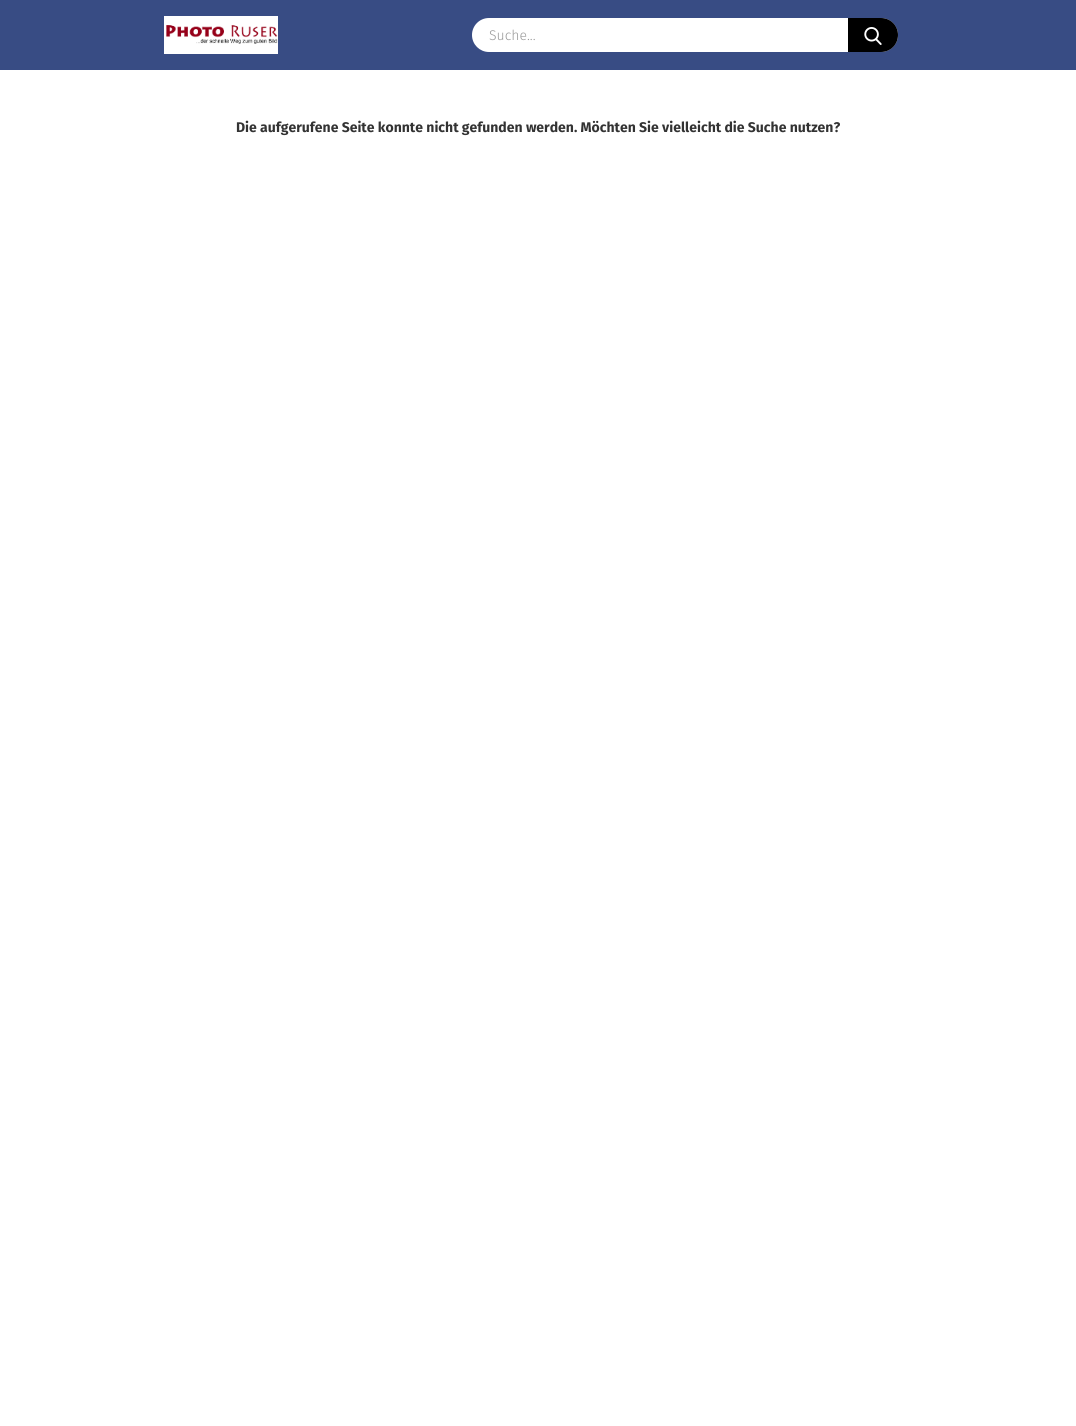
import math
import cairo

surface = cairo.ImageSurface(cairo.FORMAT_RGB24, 1076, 1426)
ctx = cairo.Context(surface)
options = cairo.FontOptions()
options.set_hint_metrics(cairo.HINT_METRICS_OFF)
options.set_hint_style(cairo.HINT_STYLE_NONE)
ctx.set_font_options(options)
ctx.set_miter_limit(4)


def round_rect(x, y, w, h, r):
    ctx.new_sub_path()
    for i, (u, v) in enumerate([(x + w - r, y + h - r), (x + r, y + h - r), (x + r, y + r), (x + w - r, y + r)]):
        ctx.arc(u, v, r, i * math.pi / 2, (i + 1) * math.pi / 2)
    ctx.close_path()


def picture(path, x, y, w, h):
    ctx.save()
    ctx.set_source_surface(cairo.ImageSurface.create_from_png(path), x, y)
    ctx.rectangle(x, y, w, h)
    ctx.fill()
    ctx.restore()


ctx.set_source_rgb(1, 1, 1)
ctx.paint()
ctx.set_source_rgb(0.22, 0.298, 0.518)
ctx.rectangle(0, 0, 1076, 70)
ctx.fill()
picture("img1.png", 164, 16, 114, 38)
ctx.set_source_rgb(1, 1, 1)
round_rect(473, 19, 424, 32, 16)
ctx.fill_preserve()
ctx.stroke()
ctx.select_font_face("Fira Sans Light")
ctx.set_font_size(14)
ctx.set_source_rgb(0.6, 0.6, 0.6)
ctx.move_to(489, 40)
ctx.show_text("Suche...")
ctx.set_source_rgb(0, 0, 0)
ctx.new_path()
ctx.move_to(848, 18)
ctx.line_to(881, 18)
ctx.curve_to(890.5, 18, 898, 25.5, 898, 35)
ctx.curve_to(898, 44.5, 890.5, 52, 881, 52)
ctx.line_to(848, 52)
ctx.close_path()
ctx.fill()
picture("img2.png", 864, 27, 18, 18)
ctx.select_font_face("Fira Sans", cairo.FONT_SLANT_NORMAL, cairo.FONT_WEIGHT_BOLD)
ctx.set_source_rgb(0.2, 0.2, 0.2)
ctx.move_to(236, 132)
ctx.show_text("Die aufgerufene Seite konnte nicht gefunden werden. Möchten Sie vielleicht die Suche nutzen?")
surface.write_to_png("page.png")
